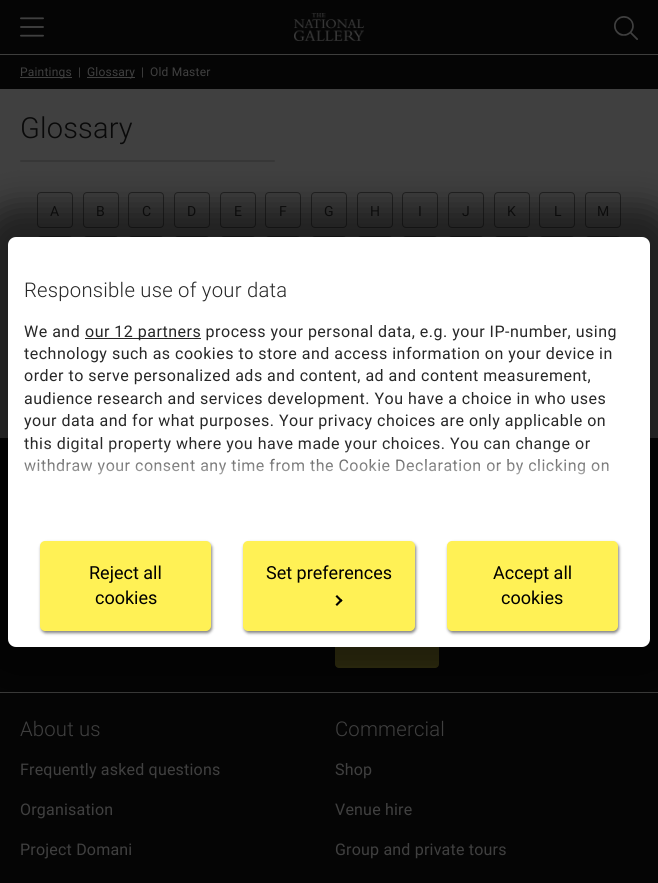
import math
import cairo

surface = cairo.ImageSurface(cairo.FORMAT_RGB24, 658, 883)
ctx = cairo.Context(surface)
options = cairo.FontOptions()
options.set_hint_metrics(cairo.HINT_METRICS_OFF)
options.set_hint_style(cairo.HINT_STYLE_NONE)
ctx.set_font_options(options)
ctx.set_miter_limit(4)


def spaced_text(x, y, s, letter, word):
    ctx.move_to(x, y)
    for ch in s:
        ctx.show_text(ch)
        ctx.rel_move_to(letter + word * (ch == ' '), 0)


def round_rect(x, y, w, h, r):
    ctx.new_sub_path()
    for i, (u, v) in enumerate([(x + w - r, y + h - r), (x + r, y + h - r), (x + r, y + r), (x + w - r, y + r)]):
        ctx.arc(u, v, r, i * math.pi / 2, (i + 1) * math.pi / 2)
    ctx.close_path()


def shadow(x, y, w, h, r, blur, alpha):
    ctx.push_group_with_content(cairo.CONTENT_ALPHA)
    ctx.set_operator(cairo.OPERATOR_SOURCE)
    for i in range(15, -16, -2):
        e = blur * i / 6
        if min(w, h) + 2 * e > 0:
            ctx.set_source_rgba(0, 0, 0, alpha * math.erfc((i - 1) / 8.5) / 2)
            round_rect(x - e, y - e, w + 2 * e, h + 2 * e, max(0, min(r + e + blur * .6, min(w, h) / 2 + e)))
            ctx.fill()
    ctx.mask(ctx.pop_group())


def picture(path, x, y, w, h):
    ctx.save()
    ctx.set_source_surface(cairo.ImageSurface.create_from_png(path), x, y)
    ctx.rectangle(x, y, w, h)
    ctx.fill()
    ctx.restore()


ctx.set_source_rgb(0.251, 0.251, 0.251)
ctx.paint()
ctx.set_source_rgb(0.02, 0.02, 0.02)
ctx.rectangle(0, 0, 658, 54)
ctx.fill()
picture("img1.png", 20, 17, 24, 20)
picture("img2.png", 294, 13, 70, 28)
picture("img3.png", 614, 16, 24, 24)
ctx.rectangle(0, 55, 658, 34)
ctx.fill()
ctx.set_source_rgb(0.243, 0.243, 0.239)
ctx.rectangle(0, 54, 658, 1)
ctx.fill()
ctx.set_source_rgb(0.251, 0.251, 0.251)
ctx.rectangle(20, 77, 52, 1)
ctx.fill()
ctx.select_font_face("Roboto")
ctx.set_font_size(12)
spaced_text(20, 76, "Paintings", 0.2, 0)
spaced_text(78, 76, "|", 0.2, 0)
ctx.rectangle(87, 77, 48, 1)
ctx.fill()
spaced_text(87, 76, "Glossary", 0.2, 0)
spaced_text(141, 76, "|", 0.2, 0)
spaced_text(150, 76, "Old Master", 0.2, 0)
ctx.select_font_face("Roboto Light")
ctx.set_font_size(29)
ctx.set_source_rgb(0.039, 0.039, 0.039)
spaced_text(20, 138, "Glossary", 0.2, 0)
ctx.set_source_rgb(0.216, 0.216, 0.216)
round_rect(20, 160, 255, 2, 1)
ctx.fill()
round_rect(37.5, 192.5, 35, 35, 3.5)
ctx.set_source_rgb(0.141, 0.141, 0.141)
ctx.set_line_width(1)
ctx.stroke()
ctx.select_font_face("Roboto")
ctx.set_font_size(14)
ctx.set_source_rgb(0.071, 0.071, 0.071)
spaced_text(50, 216, "A", 0.2, 0)
round_rect(83.5, 192.5, 35, 35, 3.5)
ctx.set_source_rgb(0.141, 0.141, 0.141)
ctx.stroke()
ctx.set_source_rgb(0.071, 0.071, 0.071)
spaced_text(96, 216, "B", 0.2, 0)
round_rect(128.5, 192.5, 35, 35, 3.5)
ctx.set_source_rgb(0.141, 0.141, 0.141)
ctx.stroke()
ctx.set_source_rgb(0.071, 0.071, 0.071)
spaced_text(142, 216, "C", 0.2, 0)
round_rect(174.5, 192.5, 35, 35, 3.5)
ctx.set_source_rgb(0.141, 0.141, 0.141)
ctx.stroke()
ctx.set_source_rgb(0.071, 0.071, 0.071)
spaced_text(187, 216, "D", 0.2, 0)
round_rect(220.5, 192.5, 35, 35, 3.5)
ctx.set_source_rgb(0.141, 0.141, 0.141)
ctx.stroke()
ctx.set_source_rgb(0.071, 0.071, 0.071)
spaced_text(234, 216, "E", 0.2, 0)
round_rect(265.5, 192.5, 35, 35, 3.5)
ctx.set_source_rgb(0.141, 0.141, 0.141)
ctx.stroke()
ctx.set_source_rgb(0.071, 0.071, 0.071)
spaced_text(279, 216, "F", 0.2, 0)
round_rect(311.5, 192.5, 35, 35, 3.5)
ctx.set_source_rgb(0.141, 0.141, 0.141)
ctx.stroke()
ctx.set_source_rgb(0.071, 0.071, 0.071)
spaced_text(324, 216, "G", 0.2, 0)
round_rect(357.5, 192.5, 35, 35, 3.5)
ctx.set_source_rgb(0.141, 0.141, 0.141)
ctx.stroke()
ctx.set_source_rgb(0.071, 0.071, 0.071)
spaced_text(370, 216, "H", 0.2, 0)
round_rect(402.5, 192.5, 35, 35, 3.5)
ctx.set_source_rgb(0.141, 0.141, 0.141)
ctx.stroke()
ctx.set_source_rgb(0.071, 0.071, 0.071)
spaced_text(418, 216, "I", 0.2, 0)
round_rect(448.5, 192.5, 35, 35, 3.5)
ctx.set_source_rgb(0.141, 0.141, 0.141)
ctx.stroke()
ctx.set_source_rgb(0.071, 0.071, 0.071)
spaced_text(462, 216, "J", 0.2, 0)
round_rect(494.5, 192.5, 35, 35, 3.5)
ctx.set_source_rgb(0.141, 0.141, 0.141)
ctx.stroke()
ctx.set_source_rgb(0.071, 0.071, 0.071)
spaced_text(507, 216, "K", 0.2, 0)
round_rect(539.5, 192.5, 35, 35, 3.5)
ctx.set_source_rgb(0.141, 0.141, 0.141)
ctx.stroke()
ctx.set_source_rgb(0.071, 0.071, 0.071)
spaced_text(554, 216, "L", 0.2, 0)
round_rect(585.5, 192.5, 35, 35, 3.5)
ctx.set_source_rgb(0.141, 0.141, 0.141)
ctx.stroke()
ctx.set_source_rgb(0.071, 0.071, 0.071)
spaced_text(597, 216, "M", 0.2, 0)
round_rect(37.5, 236.5, 35, 35, 3.5)
ctx.set_source_rgb(0.141, 0.141, 0.141)
ctx.stroke()
round_rect(83.5, 236.5, 35, 35, 3.5)
ctx.stroke()
round_rect(128.5, 236.5, 35, 35, 3.5)
ctx.stroke()
round_rect(174.5, 236.5, 35, 35, 3.5)
ctx.stroke()
round_rect(220.5, 236.5, 35, 35, 3.5)
ctx.stroke()
round_rect(265.5, 236.5, 35, 35, 3.5)
ctx.stroke()
round_rect(311.5, 236.5, 35, 35, 3.5)
ctx.stroke()
round_rect(357.5, 236.5, 35, 35, 3.5)
ctx.stroke()
round_rect(402.5, 236.5, 35, 35, 3.5)
ctx.stroke()
round_rect(448.5, 236.5, 35, 35, 3.5)
ctx.stroke()
round_rect(494.5, 236.5, 35, 35, 3.5)
ctx.stroke()
round_rect(539.5, 236.5, 35, 35, 3.5)
ctx.stroke()
round_rect(585.5, 236.5, 35, 35, 3.5)
ctx.stroke()
ctx.set_source_rgb(0.02, 0.02, 0.02)
ctx.rectangle(0, 438, 658, 445)
ctx.fill()
ctx.set_source_rgb(0.243, 0.243, 0.239)
ctx.rectangle(0, 692, 658, 1)
ctx.fill()
ctx.set_source_rgb(0.251, 0.235, 0.082)
round_rect(335.5, 623.5, 103, 44, 3.5)
ctx.fill_preserve()
ctx.stroke()
ctx.set_source_rgb(0, 0, 0)
shadow(-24, 205, 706, 474, 40, 16, 0.5)
ctx.set_source_rgb(1, 1, 1)
round_rect(8, 237, 642, 410, 8)
ctx.fill()
ctx.select_font_face("Roboto Light")
ctx.set_font_size(20.25)
ctx.set_source_rgb(0.153, 0.153, 0.153)
spaced_text(24, 297, "Responsible use of your data", 0.25, 0)
ctx.select_font_face("Roboto")
ctx.set_font_size(16)
spaced_text(24, 337, "We and", 0.5, 0)
ctx.rectangle(85, 338, 116, 1)
ctx.fill()
spaced_text(85, 337, "our 12 partners process your personal data, e.g. your IP-number, using", 0.5, 0)
spaced_text(24, 359, "technology such as cookies to store and access information on your device in", 0.5, 0)
spaced_text(24, 381, "order to serve personalized ads and content, ad and content measurement,", 0.5, 0)
spaced_text(24, 404, "audience research and services development. You have a choice in who uses", 0.5, 0)
spaced_text(24, 426, "your data and for what purposes. Your privacy choices are only applicable on", 0.5, 0)
spaced_text(24, 449, "this digital property where you have made your choices. You can change or", 0.5, 0)
spaced_text(24, 471, "withdraw your consent any time from the Cookie Declaration or by clicking on", 0.5, 0)
gradient = cairo.LinearGradient(322, 525, 322, 445)
gradient.add_color_stop_rgba(0, 1, 1, 1, 1)
gradient.add_color_stop_rgba(0.5, 1, 1, 1, 0.8)
gradient.add_color_stop_rgba(1, 1, 1, 1, 0)
ctx.set_source(gradient)
ctx.rectangle(24, 446, 585, 29)
ctx.fill()
ctx.set_source_rgb(0, 0, 0)
shadow(41, 543, 171, 90, 5, 1.5, 0.5)
ctx.set_source_rgb(1, 0.945, 0.333)
round_rect(41, 542, 169, 88, 4)
ctx.fill_preserve()
ctx.set_line_width(2)
ctx.stroke()
ctx.set_font_size(18)
ctx.set_source_rgb(0, 0, 0)
ctx.move_to(89, 579)
ctx.show_text("Reject all")
ctx.move_to(95, 604)
ctx.show_text("cookies")
ctx.set_source_rgb(0, 0, 0)
shadow(244, 543, 172, 90, 5, 1.5, 0.5)
ctx.set_source_rgb(1, 0.945, 0.333)
round_rect(244, 542, 170, 88, 4)
ctx.fill_preserve()
ctx.stroke()
ctx.set_source_rgb(0, 0, 0)
ctx.move_to(266, 579)
ctx.show_text("Set preferences")
ctx.new_path()
ctx.move_to(337, 595)
ctx.line_to(342.5, 600.5)
ctx.line_to(341, 602)
ctx.line_to(335.5, 596.5)
ctx.close_path()
ctx.fill()
ctx.new_path()
ctx.move_to(341, 599)
ctx.line_to(342.5, 600.5)
ctx.line_to(337, 606)
ctx.line_to(335.5, 604.5)
ctx.close_path()
ctx.fill()
ctx.set_source_rgb(0, 0, 0)
shadow(448, 543, 171, 90, 5, 1.5, 0.5)
ctx.set_source_rgb(1, 0.945, 0.333)
round_rect(448, 542, 169, 88, 4)
ctx.fill_preserve()
ctx.stroke()
ctx.set_source_rgb(0, 0, 0)
ctx.move_to(493, 579)
ctx.show_text("Accept all")
ctx.move_to(501, 604)
ctx.show_text("cookies")
ctx.select_font_face("Roboto Light")
ctx.set_font_size(20.25)
ctx.set_source_rgb(0.251, 0.251, 0.251)
spaced_text(20, 736, "About us", 0.2, 0)
ctx.select_font_face("Roboto")
ctx.set_font_size(16)
spaced_text(20, 775, "Frequently asked questions", 0.2, 0)
spaced_text(20, 815, "Organisation", 0.2, 0)
spaced_text(20, 855, "Project Domani", 0.2, 0)
ctx.select_font_face("Roboto Light")
ctx.set_font_size(20.25)
spaced_text(335, 736, "Commercial", 0.2, 0)
ctx.select_font_face("Roboto")
ctx.set_font_size(16)
spaced_text(335, 775, "Shop", 0.2, 0)
spaced_text(335, 815, "Venue hire", 0.2, 0)
spaced_text(335, 855, "Group and private tours", 0.2, 0)
surface.write_to_png("page.png")
